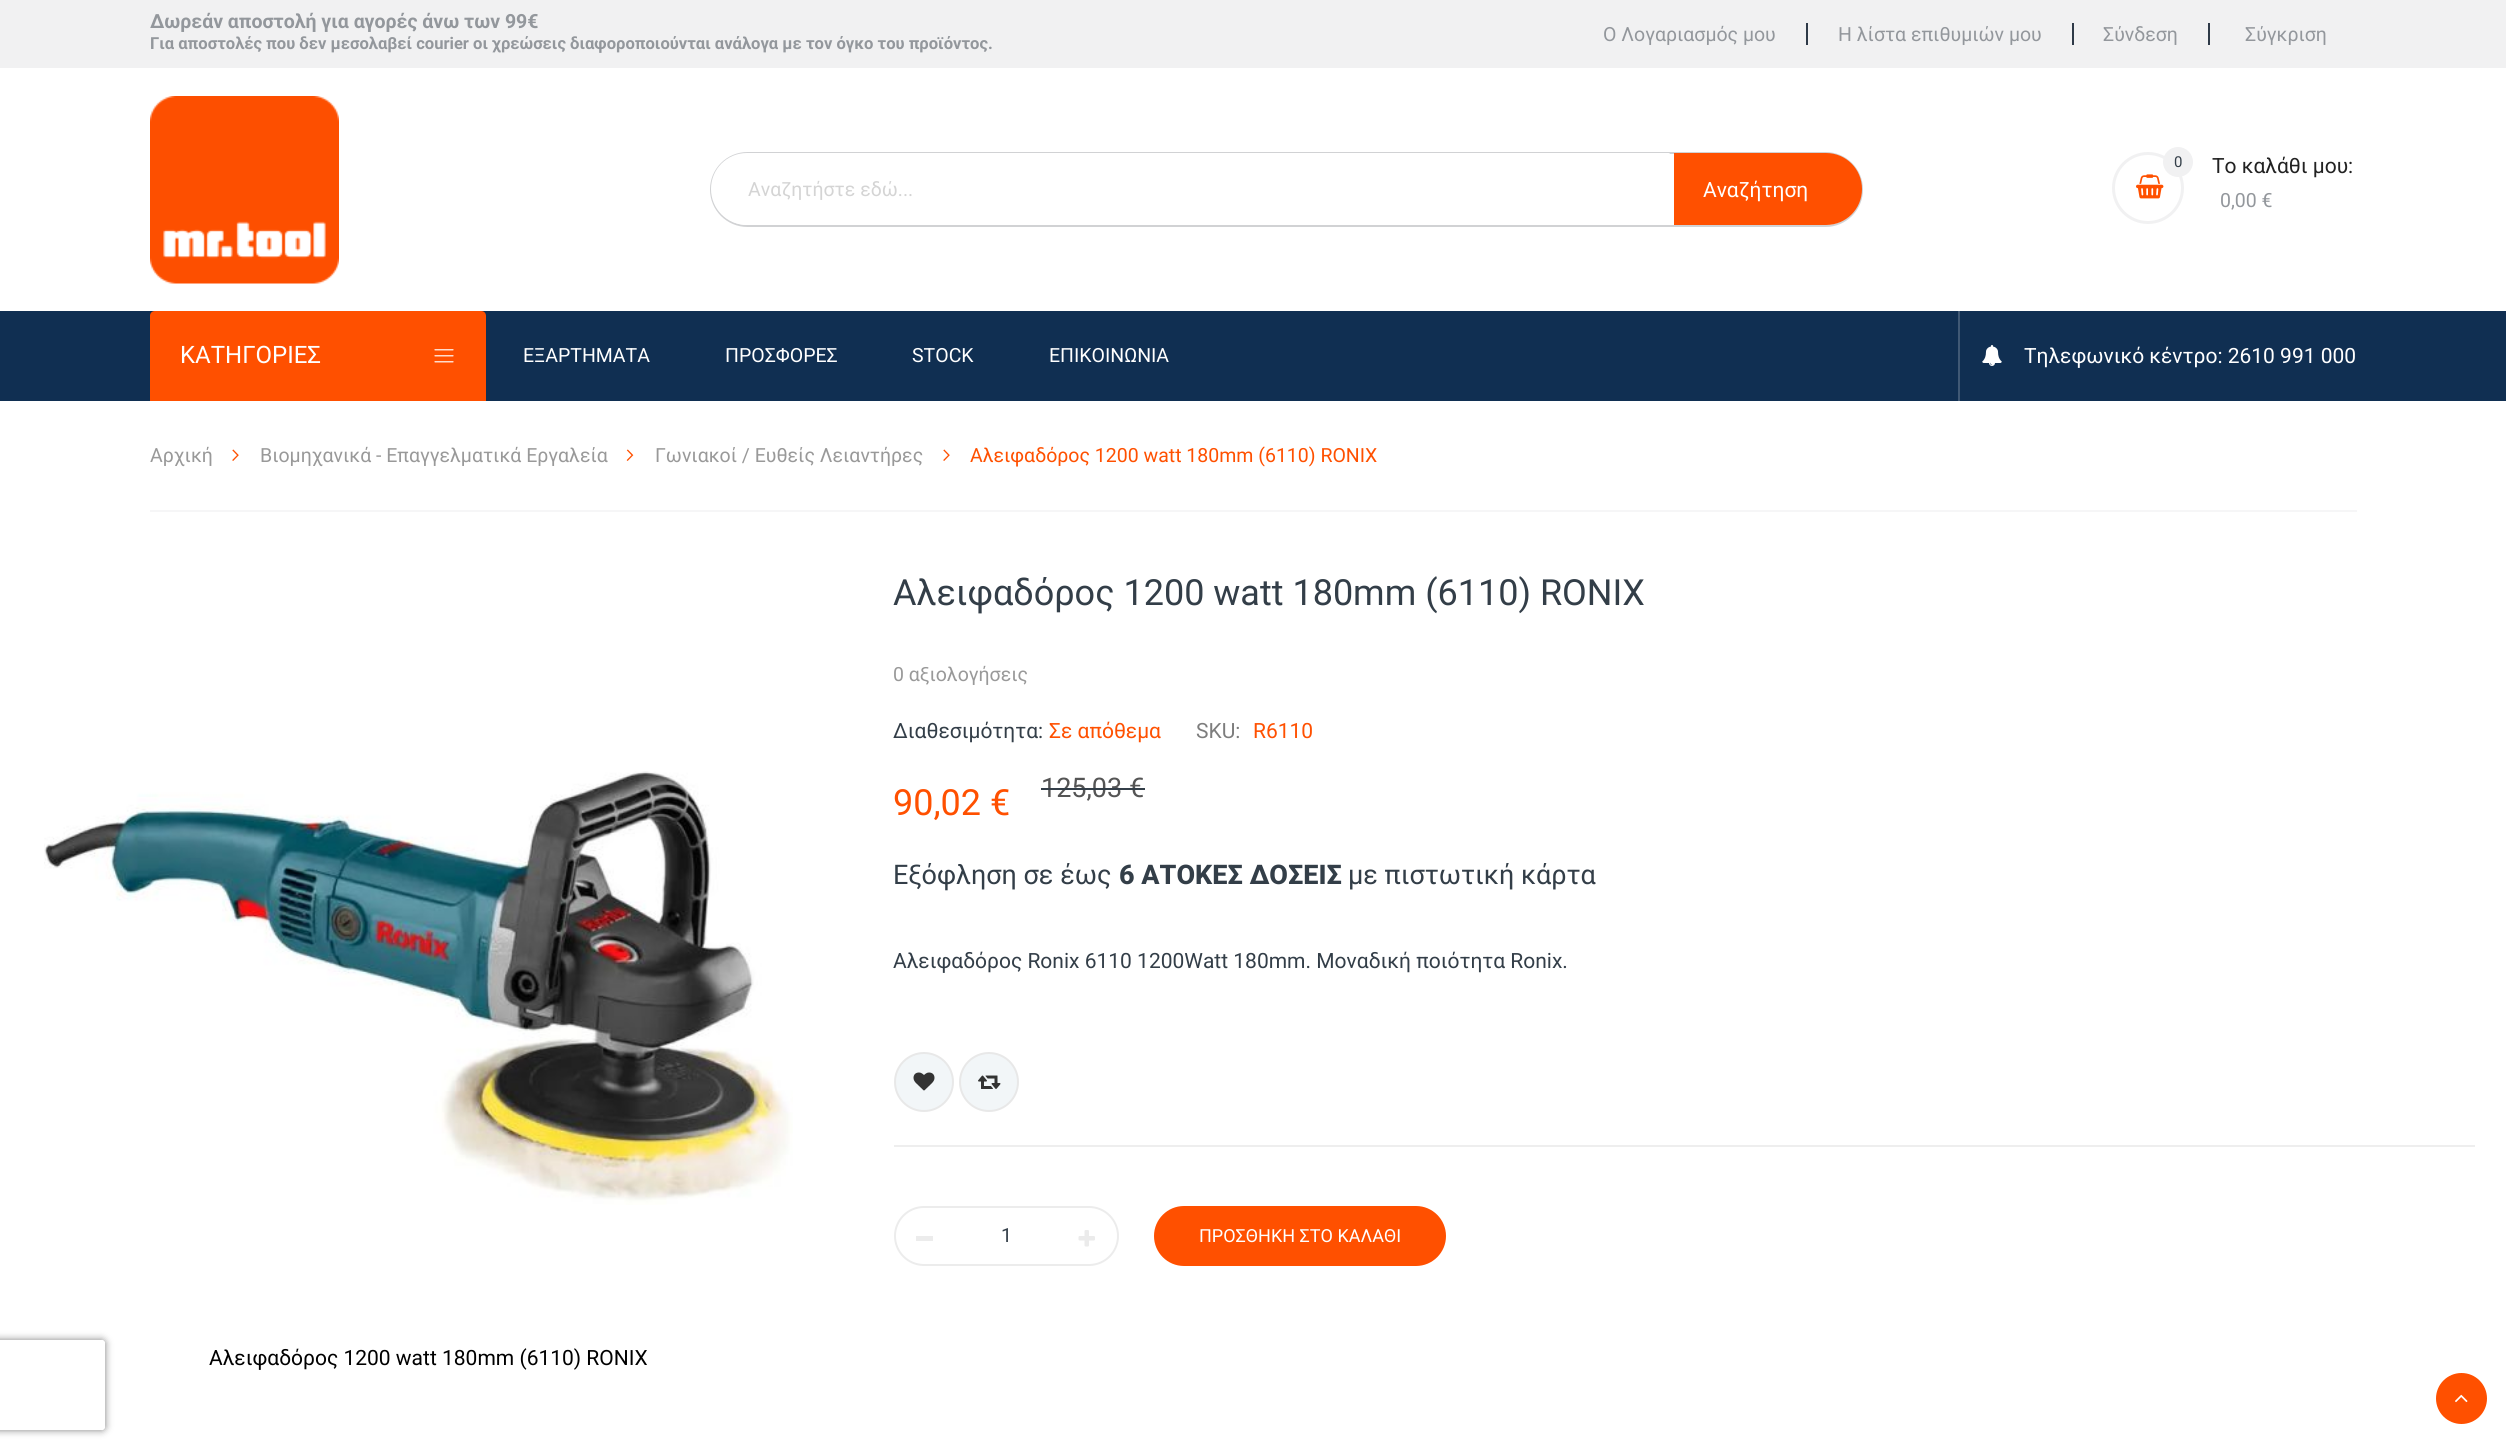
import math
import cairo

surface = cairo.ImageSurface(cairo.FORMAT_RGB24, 2506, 1450)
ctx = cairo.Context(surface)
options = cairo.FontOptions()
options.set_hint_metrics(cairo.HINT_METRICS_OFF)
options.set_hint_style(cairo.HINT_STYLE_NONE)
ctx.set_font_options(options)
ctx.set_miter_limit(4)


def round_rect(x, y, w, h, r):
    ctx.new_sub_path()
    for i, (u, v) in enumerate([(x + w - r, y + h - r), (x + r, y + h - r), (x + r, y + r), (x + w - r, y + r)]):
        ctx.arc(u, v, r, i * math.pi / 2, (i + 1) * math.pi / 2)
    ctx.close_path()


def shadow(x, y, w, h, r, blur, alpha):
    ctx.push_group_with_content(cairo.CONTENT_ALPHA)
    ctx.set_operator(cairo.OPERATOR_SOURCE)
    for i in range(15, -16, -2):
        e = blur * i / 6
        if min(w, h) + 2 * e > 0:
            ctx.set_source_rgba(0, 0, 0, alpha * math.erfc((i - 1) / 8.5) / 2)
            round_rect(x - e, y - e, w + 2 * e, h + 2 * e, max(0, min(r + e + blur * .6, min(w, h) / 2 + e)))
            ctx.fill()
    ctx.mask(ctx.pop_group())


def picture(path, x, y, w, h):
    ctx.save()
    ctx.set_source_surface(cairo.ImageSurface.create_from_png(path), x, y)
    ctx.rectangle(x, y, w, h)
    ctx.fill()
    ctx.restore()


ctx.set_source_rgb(1, 1, 1)
ctx.paint()
ctx.set_source_rgb(0.945, 0.945, 0.949)
ctx.rectangle(0, 0, 2506, 68)
ctx.fill()
ctx.select_font_face("Roboto", cairo.FONT_SLANT_NORMAL, cairo.FONT_WEIGHT_BOLD)
ctx.set_font_size(19.5)
ctx.set_source_rgb(0.576, 0.592, 0.612)
ctx.move_to(150, 28)
ctx.show_text("Δωρεάν αποστολή για αγορές άνω των 99€")
ctx.set_font_size(16.58)
ctx.move_to(150, 49)
ctx.show_text("Για αποστολές που δεν μεσολαβεί courier οι χρεώσεις διαφοροποιούνται ανάλογα με τον όγκο του προϊόντος.")
ctx.select_font_face("Roboto")
ctx.set_font_size(19.5)
ctx.move_to(1603, 41)
ctx.show_text("Ο Λογαριασμός μου")
ctx.set_source_rgb(0.18, 0.227, 0.282)
ctx.rectangle(1806, 23, 2, 22)
ctx.fill()
ctx.set_source_rgb(0.576, 0.592, 0.612)
ctx.move_to(1838, 41)
ctx.show_text("Η λίστα επιθυμιών μου")
ctx.set_source_rgb(0.18, 0.227, 0.282)
ctx.rectangle(2072, 23, 2, 22)
ctx.fill()
ctx.set_source_rgb(0.576, 0.592, 0.612)
ctx.move_to(2103, 41)
ctx.show_text("Σύνδεση")
ctx.set_source_rgb(0.18, 0.227, 0.282)
ctx.rectangle(2208, 23, 2, 22)
ctx.fill()
ctx.set_source_rgb(0.576, 0.592, 0.612)
ctx.move_to(2245, 41)
ctx.show_text("Σύγκριση")
picture("img1.png", 150, 96, 189, 188)
round_rect(711, 153, 1151, 73, 36.5)
ctx.set_source_rgb(0.82, 0.824, 0.831)
ctx.stroke()
ctx.set_source_rgb(1, 1, 1)
ctx.new_path()
ctx.move_to(747, 153)
ctx.line_to(1668.5, 153)
ctx.curve_to(1669.5, 153, 1670, 153.5, 1670, 154.5)
ctx.line_to(1670, 223.5)
ctx.curve_to(1670, 224.5, 1669.5, 225, 1668.5, 225)
ctx.line_to(747, 225)
ctx.curve_to(727, 225, 711, 209, 711, 189)
ctx.curve_to(711, 169, 727, 153, 747, 153)
ctx.close_path()
ctx.fill()
ctx.set_source_rgb(0.831, 0.831, 0.831)
ctx.move_to(748, 196)
ctx.show_text("Αναζητήστε εδώ...")
ctx.set_source_rgb(1, 0.314, 0)
ctx.new_path()
ctx.move_to(1674, 153)
ctx.line_to(1826, 153)
ctx.curve_to(1846, 153, 1862, 169, 1862, 189)
ctx.curve_to(1862, 209, 1846, 225, 1826, 225)
ctx.line_to(1674, 225)
ctx.close_path()
ctx.fill()
ctx.set_font_size(21)
ctx.set_source_rgb(1, 1, 1)
ctx.move_to(1703, 197)
ctx.show_text("Αναζήτηση")
ctx.new_path()
ctx.arc(2148, 188, 34.5, 0, 2 * math.pi)
ctx.set_source_rgb(0.945, 0.945, 0.949)
ctx.set_line_width(3)
ctx.stroke()
picture("img2.png", 2136, 174, 28, 25)
ctx.arc(2178, 162, 15, 0, 2 * math.pi)
ctx.fill()
ctx.set_font_size(15)
ctx.set_source_rgb(0.2, 0.243, 0.282)
ctx.move_to(2174, 167)
ctx.show_text("0")
ctx.set_font_size(21)
ctx.set_source_rgb(0.133, 0.133, 0.133)
ctx.move_to(2212, 173)
ctx.show_text("Το καλάθι μου:")
ctx.set_font_size(19.5)
ctx.set_source_rgb(0.576, 0.592, 0.612)
ctx.move_to(2220, 207)
ctx.show_text("0,00 €")
ctx.set_source_rgb(0.063, 0.184, 0.322)
ctx.rectangle(0, 311, 2506, 90)
ctx.fill()
ctx.set_source_rgb(1, 0.314, 0)
ctx.new_path()
ctx.move_to(155, 311)
ctx.line_to(481, 311)
ctx.curve_to(484, 311, 486, 313, 486, 316)
ctx.line_to(486, 401)
ctx.line_to(150, 401)
ctx.line_to(150, 316)
ctx.curve_to(150, 313, 152, 311, 155, 311)
ctx.close_path()
ctx.fill()
ctx.set_font_size(24)
ctx.set_source_rgb(1, 1, 1)
ctx.move_to(180, 363)
ctx.show_text("KΑΤΗΓΟΡΙΕΣ")
picture("img3.png", 434, 349, 20, 14)
ctx.set_font_size(19.5)
ctx.move_to(523, 362)
ctx.show_text("ΕΞΑΡΤΗΜΑΤΑ")
ctx.move_to(725, 362)
ctx.show_text("ΠΡΟΣΦΟΡΕΣ")
ctx.move_to(912, 362)
ctx.show_text("STOCK")
ctx.move_to(1049, 362)
ctx.show_text("ΕΠΙΚΟΙΝΩΝΙΑ")
ctx.set_source_rgb(0.251, 0.349, 0.459)
ctx.rectangle(1958, 311, 2, 90)
ctx.fill()
picture("img4.png", 1982, 345, 20, 21)
ctx.set_font_size(21)
ctx.set_source_rgb(1, 1, 1)
ctx.move_to(2024, 363)
ctx.show_text("Τηλεφωνικό κέντρο: 2610 991 000")
ctx.set_source_rgb(0.961, 0.961, 0.965)
ctx.rectangle(150, 510, 2207, 2)
ctx.fill()
ctx.set_font_size(19.5)
ctx.set_source_rgb(0.6, 0.6, 0.6)
ctx.move_to(150, 462)
ctx.show_text("Αρχική")
picture("img5.png", 232, 449, 7, 12)
ctx.move_to(260, 462)
ctx.show_text("Βιομηχανικά - Επαγγελματικά Εργαλεία")
picture("img6.png", 626, 449, 8, 12)
ctx.move_to(655, 462)
ctx.show_text("Γωνιακοί / Ευθείς Λειαντήρες")
picture("img5.png", 943, 449, 7, 12)
ctx.set_source_rgb(1, 0.314, 0)
ctx.move_to(970, 462)
ctx.show_text("Αλειφαδόρος 1200 watt 180mm (6110) RONIX")
ctx.set_font_size(36)
ctx.set_source_rgb(0.2, 0.243, 0.282)
ctx.move_to(893, 605)
ctx.show_text("Αλειφαδόρος 1200 watt 180mm (6110) RONIX")
ctx.set_font_size(19.5)
ctx.set_source_rgb(0.6, 0.6, 0.6)
ctx.move_to(893, 681)
ctx.show_text("0 αξιολογήσεις")
ctx.set_font_size(21)
ctx.set_source_rgb(0.2, 0.243, 0.282)
ctx.move_to(893, 738)
ctx.show_text("Διαθεσιμότητα:")
ctx.set_source_rgb(1, 0.314, 0)
ctx.move_to(1049, 738)
ctx.show_text("Σε απόθεμα")
ctx.set_source_rgb(0.49, 0.49, 0.49)
ctx.move_to(1196, 738)
ctx.show_text("SKU:")
ctx.set_source_rgb(1, 0.314, 0)
ctx.move_to(1253, 738)
ctx.show_text("R6110")
ctx.set_font_size(36)
ctx.move_to(893, 815)
ctx.show_text("90,02 €")
ctx.set_font_size(27)
ctx.set_source_rgb(0.333, 0.333, 0.333)
ctx.move_to(1041, 797)
ctx.show_text("125,03 €")
ctx.set_source_rgb(0.2, 0.243, 0.282)
ctx.rectangle(1041, 788, 104, 2)
ctx.fill()
ctx.move_to(893, 884)
ctx.show_text("Εξόφληση σε έως")
ctx.select_font_face("Roboto ExtraBold")
ctx.move_to(1119, 884)
ctx.show_text("6 ΑΤΟΚΕΣ ΔΟΣΕΙΣ")
ctx.select_font_face("Roboto")
ctx.move_to(1348, 884)
ctx.show_text("με πιστωτική κάρτα")
ctx.set_font_size(21)
ctx.move_to(893, 968)
ctx.show_text("Αλειφαδόρος Ronix 6110 1200Watt 180mm. Μοναδική ποιότητα Ronix.")
ctx.set_source_rgb(0.949, 0.961, 0.969)
ctx.new_path()
ctx.arc(924, 1082, 29, 0, 2 * math.pi)
ctx.fill_preserve()
ctx.set_source_rgb(0.91, 0.91, 0.91)
ctx.set_line_width(2)
ctx.stroke()
picture("img7.png", 913, 1072, 22, 19)
ctx.set_source_rgb(0.949, 0.961, 0.969)
ctx.arc(989, 1082, 29, 0, 2 * math.pi)
ctx.fill_preserve()
ctx.set_source_rgb(0.91, 0.91, 0.91)
ctx.stroke()
picture("img8.png", 978, 1075, 23, 14)
ctx.set_source_rgb(0.933, 0.933, 0.933)
ctx.rectangle(894, 1145, 1581, 2)
ctx.fill()
round_rect(895, 1207, 223, 58, 29)
ctx.set_source_rgb(0.922, 0.922, 0.922)
ctx.stroke()
ctx.rectangle(916, 1236, 17, 5)
ctx.fill()
ctx.set_font_size(19.5)
ctx.set_source_rgb(0.2, 0.243, 0.282)
ctx.move_to(1001, 1242)
ctx.show_text("1")
picture("img9.png", 1078, 1230, 17, 17)
ctx.set_source_rgb(1, 0.314, 0)
round_rect(1154, 1206, 292, 60, 30)
ctx.fill()
ctx.set_font_size(18)
ctx.set_source_rgb(1, 1, 1)
ctx.move_to(1199, 1242)
ctx.show_text("ΠΡΟΣΘΗΚΗ ΣΤΟ ΚΑΛΑΘΙ")
picture("img10.png", 44, 771, 749, 434)
ctx.set_font_size(21)
ctx.set_source_rgb(0, 0, 0)
ctx.move_to(209, 1365)
ctx.show_text("Αλειφαδόρος 1200 watt 180mm (6110) RONIX")
ctx.set_source_rgb(1, 0.314, 0)
ctx.new_path()
ctx.arc(2461.5, 1398.5, 25.5, 0, 2 * math.pi)
ctx.fill()
picture("img11.png", 2455, 1394, 13, 9)
ctx.save()
ctx.set_fill_rule(cairo.FILL_RULE_EVEN_ODD)
ctx.new_path()
ctx.move_to(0, 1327)
ctx.line_to(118, 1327)
ctx.line_to(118, 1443)
ctx.line_to(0, 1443)
ctx.close_path()
ctx.move_to(-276, 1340)
ctx.line_to(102, 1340)
ctx.curve_to(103.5, 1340, 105, 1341.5, 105, 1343)
ctx.line_to(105, 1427)
ctx.curve_to(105, 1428.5, 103.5, 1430, 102, 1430)
ctx.line_to(-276, 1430)
ctx.curve_to(-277.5, 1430, -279, 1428.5, -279, 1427)
ctx.line_to(-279, 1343)
ctx.curve_to(-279, 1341.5, -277.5, 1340, -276, 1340)
ctx.close_path()
ctx.clip()
ctx.set_source_rgb(0.502, 0.502, 0.502)
shadow(-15, 1340, 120, 90, 3, 4, 1)
ctx.restore()
surface.write_to_png("page.png")
